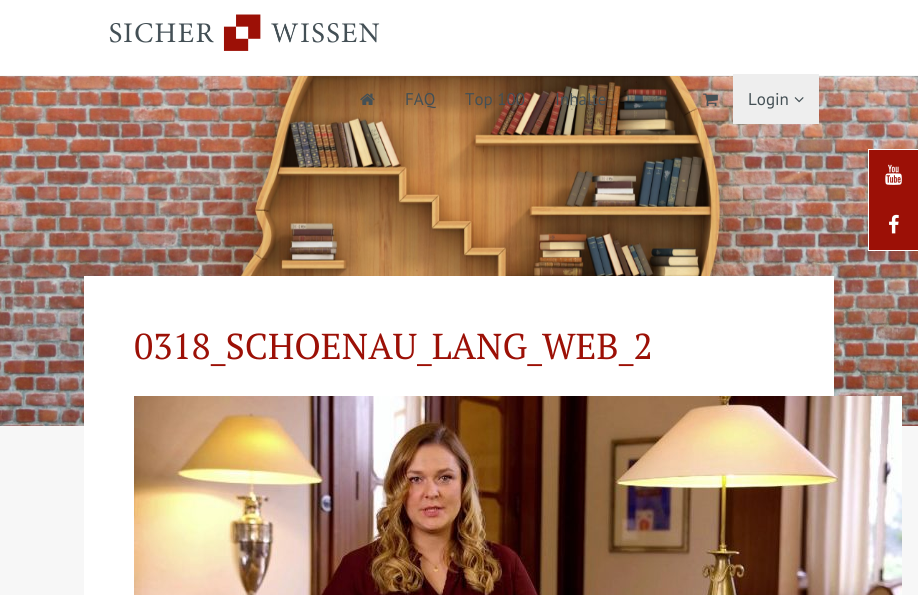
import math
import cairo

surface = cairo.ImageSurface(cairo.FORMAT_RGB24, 918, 595)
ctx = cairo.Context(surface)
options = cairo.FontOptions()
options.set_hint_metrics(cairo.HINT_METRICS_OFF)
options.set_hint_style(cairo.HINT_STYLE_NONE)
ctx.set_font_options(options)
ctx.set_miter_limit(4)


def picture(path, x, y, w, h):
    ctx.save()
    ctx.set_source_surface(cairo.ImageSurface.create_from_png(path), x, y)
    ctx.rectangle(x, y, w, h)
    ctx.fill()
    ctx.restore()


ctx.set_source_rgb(0.965, 0.965, 0.965)
ctx.paint()
picture("img1.png", 0, 76, 918, 350)
ctx.set_source_rgb(1, 1, 1)
ctx.rectangle(0, 0, 918, 75)
ctx.fill()
picture("img2.png", 109, 14, 271, 37)
picture("img3.png", 360, 93, 15, 12)
ctx.select_font_face("PT Sans")
ctx.set_font_size(17)
ctx.set_source_rgb(0.267, 0.314, 0.333)
ctx.move_to(405, 105)
ctx.show_text("FAQ")
ctx.move_to(465, 105)
ctx.show_text("Top 100")
ctx.move_to(555, 105)
ctx.show_text("Inhalte")
picture("img4.png", 703, 93, 15, 14)
ctx.set_source_rgb(0.933, 0.933, 0.933)
ctx.rectangle(733, 74, 86, 50)
ctx.fill()
ctx.set_source_rgb(0.267, 0.314, 0.333)
ctx.move_to(748, 105)
ctx.show_text("Login")
picture("img5.png", 794, 97, 10, 6)
ctx.rectangle(868.5, 149.5, 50, 101)
ctx.set_source_rgb(1, 1, 1)
ctx.set_line_width(1)
ctx.stroke()
ctx.set_source_rgb(0.612, 0.063, 0.024)
ctx.rectangle(869, 150, 49, 100)
ctx.fill()
picture("img6.png", 885, 164, 17, 21)
picture("img7.png", 889, 214, 10, 20)
ctx.set_source_rgb(1, 1, 1)
ctx.rectangle(84, 276, 750, 319)
ctx.fill()
ctx.select_font_face("PT Serif")
ctx.set_font_size(36)
ctx.set_source_rgb(0.612, 0.063, 0.024)
ctx.move_to(134, 359)
ctx.show_text("0318_SCHOENAU_LANG_WEB_2")
picture("img8.png", 134, 396, 768, 199)
surface.write_to_png("page.png")
